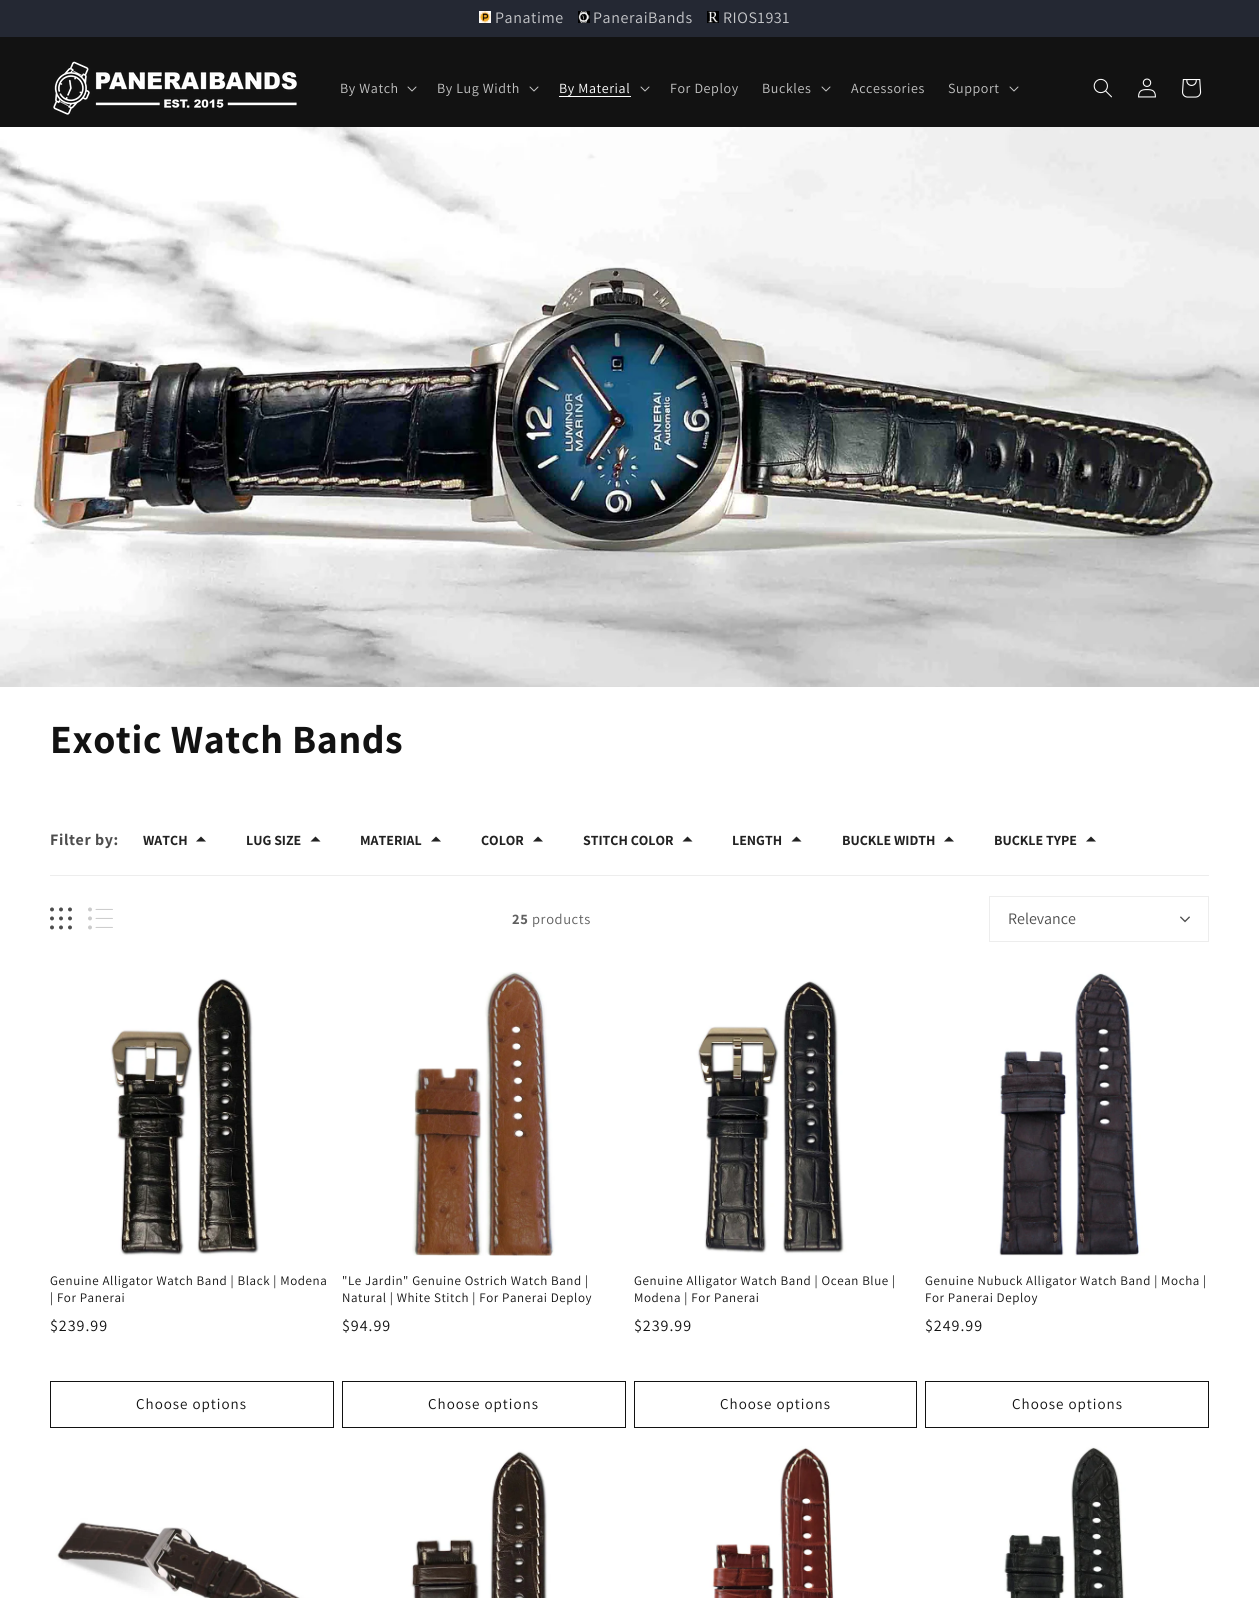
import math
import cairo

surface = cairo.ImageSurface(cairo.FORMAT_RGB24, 1259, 1598)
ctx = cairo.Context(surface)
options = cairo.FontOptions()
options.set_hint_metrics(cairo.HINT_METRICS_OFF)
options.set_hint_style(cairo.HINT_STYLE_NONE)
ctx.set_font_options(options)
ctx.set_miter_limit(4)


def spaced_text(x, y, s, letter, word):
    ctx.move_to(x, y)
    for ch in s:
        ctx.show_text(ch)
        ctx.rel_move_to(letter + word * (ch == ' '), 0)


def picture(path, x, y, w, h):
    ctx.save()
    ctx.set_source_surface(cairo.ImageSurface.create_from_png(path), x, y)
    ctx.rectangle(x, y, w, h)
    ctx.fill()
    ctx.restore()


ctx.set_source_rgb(1, 1, 1)
ctx.paint()
ctx.set_source_rgb(0.141, 0.157, 0.2)
ctx.rectangle(0, 0, 1259, 37)
ctx.fill()
picture("img1.png", 479, 11, 12, 12)
ctx.select_font_face("Assistant")
ctx.set_font_size(16)
ctx.set_source_rgb(0.784, 0.788, 0.8)
spaced_text(495, 23, "Panatime", 0.6, 0)
picture("img2.png", 578, 11, 12, 12)
spaced_text(593, 23, "PaneraiBands", 0.6, 0)
picture("img3.png", 707, 11, 12, 12)
spaced_text(723, 23, "RIOS1931", 0.6, 0)
ctx.set_source_rgb(0.071, 0.071, 0.071)
ctx.rectangle(0, 37, 1259, 90)
ctx.fill()
picture("img4.png", 53, 61, 244, 54)
ctx.set_font_size(14)
ctx.set_source_rgb(0.769, 0.769, 0.769)
spaced_text(340, 93, "By Watch", 0.6, 0)
picture("img5.png", 407, 86, 10, 6)
spaced_text(437, 93, "By Lug Width", 0.6, 0)
picture("img5.png", 529, 86, 10, 6)
ctx.set_source_rgb(1, 1, 1)
spaced_text(559, 93, "By Material", 0.6, 0)
ctx.rectangle(559, 96, 72, 1)
ctx.fill()
picture("img5.png", 640, 86, 10, 6)
ctx.set_source_rgb(0.769, 0.769, 0.769)
spaced_text(670, 93, "For Deploy", 0.6, 0)
spaced_text(762, 93, "Buckles", 0.6, 0)
picture("img5.png", 821, 86, 10, 6)
spaced_text(851, 93, "Accessories", 0.6, 0)
spaced_text(948, 93, "Support", 0.6, 0)
picture("img5.png", 1009, 86, 10, 6)
picture("img6.png", 1093, 78, 19, 20)
picture("img7.png", 1138, 78, 18, 20)
picture("img8.png", 1182, 79, 20, 19)
picture("img9.png", 0, 127, 1259, 560)
ctx.select_font_face("Assistant", cairo.FONT_SLANT_NORMAL, cairo.FONT_WEIGHT_BOLD)
ctx.set_font_size(40)
ctx.set_source_rgb(0.071, 0.071, 0.071)
spaced_text(50, 753, "Exotic Watch Bands", 0.6, 0)
ctx.set_source_rgb(0.929, 0.929, 0.929)
ctx.rectangle(50, 875, 1159, 1)
ctx.fill()
ctx.set_font_size(16)
ctx.set_source_rgb(0.302, 0.302, 0.302)
spaced_text(50, 845, "Filter by:", 0.6, 0)
ctx.set_font_size(14)
ctx.set_source_rgb(0.133, 0.133, 0.133)
ctx.move_to(143, 845)
ctx.show_text("WATCH")
ctx.new_path()
ctx.move_to(206, 841.5)
ctx.line_to(196, 841.5)
ctx.line_to(201, 836.5)
ctx.close_path()
ctx.fill()
ctx.move_to(246, 845)
ctx.show_text("LUG SIZE")
ctx.new_path()
ctx.move_to(320.5, 841.5)
ctx.line_to(310.5, 841.5)
ctx.line_to(315.5, 836.5)
ctx.close_path()
ctx.fill()
ctx.move_to(360, 845)
ctx.show_text("MATERIAL")
ctx.new_path()
ctx.move_to(441, 841.5)
ctx.line_to(431, 841.5)
ctx.line_to(436, 836.5)
ctx.close_path()
ctx.fill()
ctx.move_to(481, 845)
ctx.show_text("COLOR")
ctx.new_path()
ctx.move_to(543, 841.5)
ctx.line_to(533, 841.5)
ctx.line_to(538, 836.5)
ctx.close_path()
ctx.fill()
ctx.move_to(583, 845)
ctx.show_text("STITCH COLOR")
ctx.new_path()
ctx.move_to(692.5, 841.5)
ctx.line_to(682.5, 841.5)
ctx.line_to(687.5, 836.5)
ctx.close_path()
ctx.fill()
ctx.move_to(732, 845)
ctx.show_text("LENGTH")
ctx.new_path()
ctx.move_to(801.5, 841.5)
ctx.line_to(791.5, 841.5)
ctx.line_to(796.5, 836.5)
ctx.close_path()
ctx.fill()
ctx.move_to(842, 845)
ctx.show_text("BUCKLE WIDTH")
ctx.new_path()
ctx.move_to(954, 841.5)
ctx.line_to(944, 841.5)
ctx.line_to(949, 836.5)
ctx.close_path()
ctx.fill()
ctx.move_to(994, 845)
ctx.show_text("BUCKLE TYPE")
ctx.new_path()
ctx.move_to(1096, 841.5)
ctx.line_to(1086, 841.5)
ctx.line_to(1091, 836.5)
ctx.close_path()
ctx.fill()
picture("img10.png", 50, 907, 22, 23)
picture("img11.png", 88, 907, 25, 23)
ctx.set_font_size(14.5)
ctx.set_source_rgb(0.373, 0.373, 0.373)
spaced_text(512, 924, "25", 0.6, 0)
ctx.select_font_face("Assistant")
spaced_text(532, 924, "products", 0.6, 0)
ctx.rectangle(989.5, 896.5, 219, 45)
ctx.set_source_rgb(0.929, 0.929, 0.929)
ctx.set_line_width(1)
ctx.stroke()
ctx.set_font_size(16)
ctx.set_source_rgb(0.302, 0.302, 0.302)
ctx.move_to(1008, 924)
ctx.show_text("Relevance")
picture("img12.png", 1180, 916, 10, 7)
picture("img13.png", 50, 972, 284, 284)
ctx.set_font_size(13)
ctx.set_source_rgb(0.071, 0.071, 0.071)
spaced_text(50, 1285, "Genuine Alligator Watch Band | Black | Modena", 0.6, 0)
spaced_text(50, 1302, "| For Panerai", 0.6, 0)
ctx.set_font_size(16)
spaced_text(50, 1331, "$239.99", 1, 0)
ctx.rectangle(50.5, 1381.5, 283, 46)
ctx.stroke()
ctx.set_font_size(15)
spaced_text(136, 1409, "Choose options", 1, 0)
picture("img14.png", 342, 972, 284, 284)
ctx.set_font_size(13)
spaced_text(342, 1285, "\"Le Jardin\" Genuine Ostrich Watch Band |", 0.6, 0)
spaced_text(342, 1302, "Natural | White Stitch | For Panerai Deploy", 0.6, 0)
ctx.set_font_size(16)
spaced_text(342, 1331, "$94.99", 1, 0)
ctx.rectangle(342.5, 1381.5, 283, 46)
ctx.stroke()
ctx.set_font_size(15)
spaced_text(428, 1409, "Choose options", 1, 0)
picture("img15.png", 634, 972, 283, 284)
ctx.set_font_size(13)
spaced_text(634, 1285, "Genuine Alligator Watch Band | Ocean Blue |", 0.6, 0)
spaced_text(634, 1302, "Modena | For Panerai", 0.6, 0)
ctx.set_font_size(16)
spaced_text(634, 1331, "$239.99", 1, 0)
ctx.rectangle(634.5, 1381.5, 282, 46)
ctx.stroke()
ctx.set_font_size(15)
spaced_text(720, 1409, "Choose options", 1, 0)
picture("img16.png", 925, 972, 284, 284)
ctx.set_font_size(13)
spaced_text(925, 1285, "Genuine Nubuck Alligator Watch Band | Mocha |", 0.6, 0)
spaced_text(925, 1302, "For Panerai Deploy", 0.6, 0)
ctx.set_font_size(16)
spaced_text(925, 1331, "$249.99", 1, 0)
ctx.rectangle(925.5, 1381.5, 283, 46)
ctx.stroke()
ctx.set_font_size(15)
spaced_text(1012, 1409, "Choose options", 1, 0)
picture("img17.png", 50, 1446, 284, 152)
picture("img18.png", 342, 1446, 284, 152)
picture("img19.png", 634, 1446, 283, 152)
picture("img20.png", 925, 1446, 284, 152)
surface.write_to_png("page.png")
